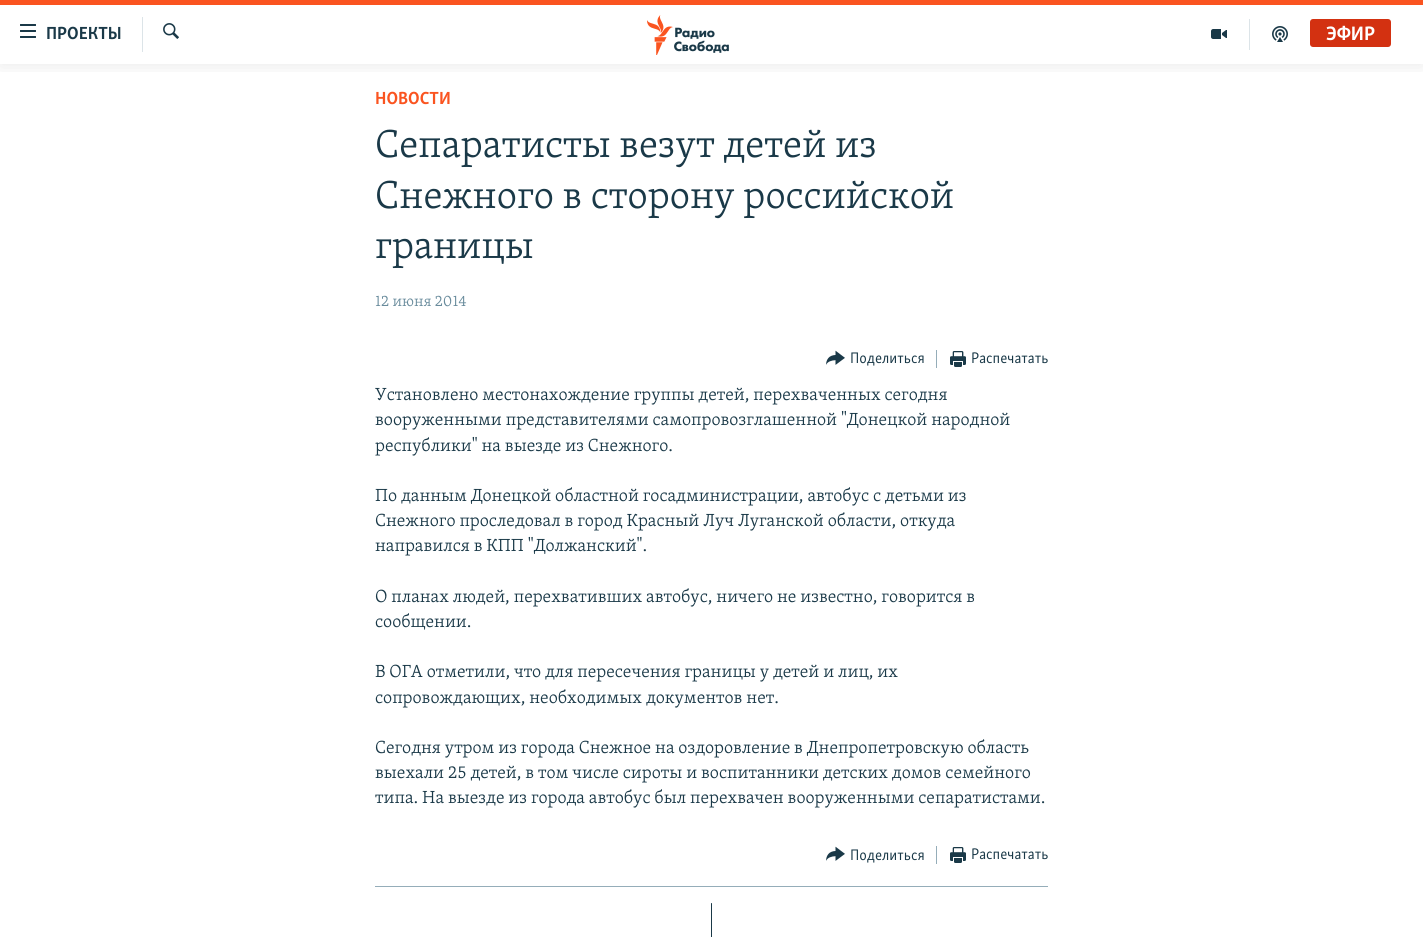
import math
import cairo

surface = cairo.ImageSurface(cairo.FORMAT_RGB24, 1423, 937)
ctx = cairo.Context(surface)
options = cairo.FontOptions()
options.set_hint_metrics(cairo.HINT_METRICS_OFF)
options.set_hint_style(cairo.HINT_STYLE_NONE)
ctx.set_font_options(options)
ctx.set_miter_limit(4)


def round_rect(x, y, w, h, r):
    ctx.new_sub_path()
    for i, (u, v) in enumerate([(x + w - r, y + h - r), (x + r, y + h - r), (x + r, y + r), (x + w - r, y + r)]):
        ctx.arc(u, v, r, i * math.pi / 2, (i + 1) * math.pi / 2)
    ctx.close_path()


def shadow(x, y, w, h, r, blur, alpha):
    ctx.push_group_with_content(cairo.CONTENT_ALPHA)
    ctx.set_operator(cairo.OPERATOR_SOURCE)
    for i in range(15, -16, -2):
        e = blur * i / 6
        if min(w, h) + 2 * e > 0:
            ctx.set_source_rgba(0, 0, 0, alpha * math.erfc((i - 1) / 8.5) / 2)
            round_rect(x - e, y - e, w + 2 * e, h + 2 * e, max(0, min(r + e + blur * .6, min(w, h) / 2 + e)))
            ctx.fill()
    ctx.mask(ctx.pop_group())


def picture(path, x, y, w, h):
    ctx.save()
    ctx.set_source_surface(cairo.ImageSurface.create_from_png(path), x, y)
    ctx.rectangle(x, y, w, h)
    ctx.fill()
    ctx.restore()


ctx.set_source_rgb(1, 1, 1)
ctx.paint()
ctx.save()
ctx.rectangle(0, 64, 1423, 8)
ctx.clip()
ctx.set_source_rgb(0, 0, 0)
shadow(0, 0, 1423, 64, 0, 10, 0.1)
ctx.restore()
ctx.set_source_rgb(0.98, 0.329, 0.125)
ctx.rectangle(0, 0, 1423, 5)
ctx.fill()
picture("img1.png", 20, 24, 16, 14)
ctx.select_font_face("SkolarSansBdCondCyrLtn", cairo.FONT_SLANT_NORMAL, cairo.FONT_WEIGHT_BOLD)
ctx.set_font_size(18)
ctx.set_source_rgb(0.102, 0.224, 0.282)
ctx.move_to(46, 39)
ctx.show_text("ПРОЕКТЫ")
ctx.set_source_rgb(0.863, 0.894, 0.91)
ctx.rectangle(142, 17, 1, 35)
ctx.fill()
picture("img2.png", 163, 23, 16, 16)
picture("img3.png", 647, 15, 82, 40)
ctx.rectangle(1249, 19, 1, 31)
ctx.fill()
picture("img4.png", 1211, 29, 16, 10)
picture("img5.png", 1272, 26, 16, 16)
ctx.set_source_rgb(0.827, 0.192, 0.067)
round_rect(1310, 19, 81, 28, 3)
ctx.fill()
ctx.set_font_size(20)
ctx.set_source_rgb(1, 1, 1)
ctx.move_to(1326, 40)
ctx.show_text("ЭФИР")
ctx.set_font_size(18)
ctx.set_source_rgb(0.98, 0.329, 0.125)
ctx.move_to(375, 104)
ctx.show_text("НОВОСТИ")
ctx.select_font_face("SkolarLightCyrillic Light")
ctx.set_font_size(40)
ctx.set_source_rgb(0.102, 0.224, 0.282)
ctx.move_to(375, 157)
ctx.show_text("Сепаратисты везут детей из")
ctx.move_to(375, 208)
ctx.show_text("Снежного в сторону российской")
ctx.move_to(375, 258)
ctx.show_text("границы")
ctx.set_font_size(15.75)
ctx.set_source_rgb(0.404, 0.541, 0.608)
ctx.move_to(375, 306)
ctx.show_text("12 июня 2014")
picture("img6.png", 826, 350, 19, 15)
ctx.select_font_face("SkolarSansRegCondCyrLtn")
ctx.set_source_rgb(0.102, 0.224, 0.282)
ctx.move_to(850, 363)
ctx.show_text("Поделиться")
ctx.set_source_rgb(0.584, 0.678, 0.725)
ctx.rectangle(936, 350, 1, 18)
ctx.fill()
picture("img7.png", 950, 351, 16, 16)
ctx.set_source_rgb(0.102, 0.224, 0.282)
ctx.move_to(971, 363)
ctx.show_text("Распечатать")
ctx.select_font_face("SkolarLightCyrillic Light")
ctx.set_font_size(18)
ctx.move_to(375, 400)
ctx.show_text("Установлено местонахождение группы детей, перехваченных сегодня")
ctx.move_to(375, 425)
ctx.show_text("вооруженными представителями самопровозглашенной \"Донецкой народной")
ctx.move_to(375, 451)
ctx.show_text("республики\" на выезде из Снежного.")
ctx.move_to(375, 501)
ctx.show_text("По данным Донецкой областной госадминистрации, автобус с детьми из")
ctx.move_to(375, 526)
ctx.show_text("Снежного проследовал в город Красный Луч Луганской области, откуда")
ctx.move_to(375, 551)
ctx.show_text("направился в КПП \"Должанский\".")
ctx.move_to(375, 602)
ctx.show_text("О планах людей, перехвативших автобус, ничего не известно, говорится в")
ctx.move_to(375, 627)
ctx.show_text("сообщении.")
ctx.move_to(375, 677)
ctx.show_text("В ОГА отметили, что для пересечения границы у детей и лиц, их")
ctx.move_to(375, 703)
ctx.show_text("сопровождающих, необходимых документов нет.")
ctx.move_to(375, 753)
ctx.show_text("Сегодня утром из города Снежное на оздоровление в Днепропетровскую область")
ctx.move_to(375, 778)
ctx.show_text("выехали 25 детей, в том числе сироты и воспитанники детских домов семейного")
ctx.move_to(375, 803)
ctx.show_text("типа. На выезде из города автобус был перехвачен вооруженными сепаратистами.")
ctx.set_source_rgb(0.584, 0.678, 0.725)
ctx.rectangle(375, 886, 673, 1)
ctx.fill()
picture("img6.png", 826, 846, 19, 15)
ctx.select_font_face("SkolarSansRegCondCyrLtn")
ctx.set_font_size(15.75)
ctx.set_source_rgb(0.102, 0.224, 0.282)
ctx.move_to(850, 860)
ctx.show_text("Поделиться")
ctx.set_source_rgb(0.584, 0.678, 0.725)
ctx.rectangle(936, 846, 1, 18)
ctx.fill()
picture("img7.png", 950, 847, 16, 16)
ctx.set_source_rgb(0.102, 0.224, 0.282)
ctx.move_to(971, 859)
ctx.show_text("Распечатать")
round_rect(711, 903, 1, 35, 0.5)
ctx.fill()
surface.write_to_png("page.png")
